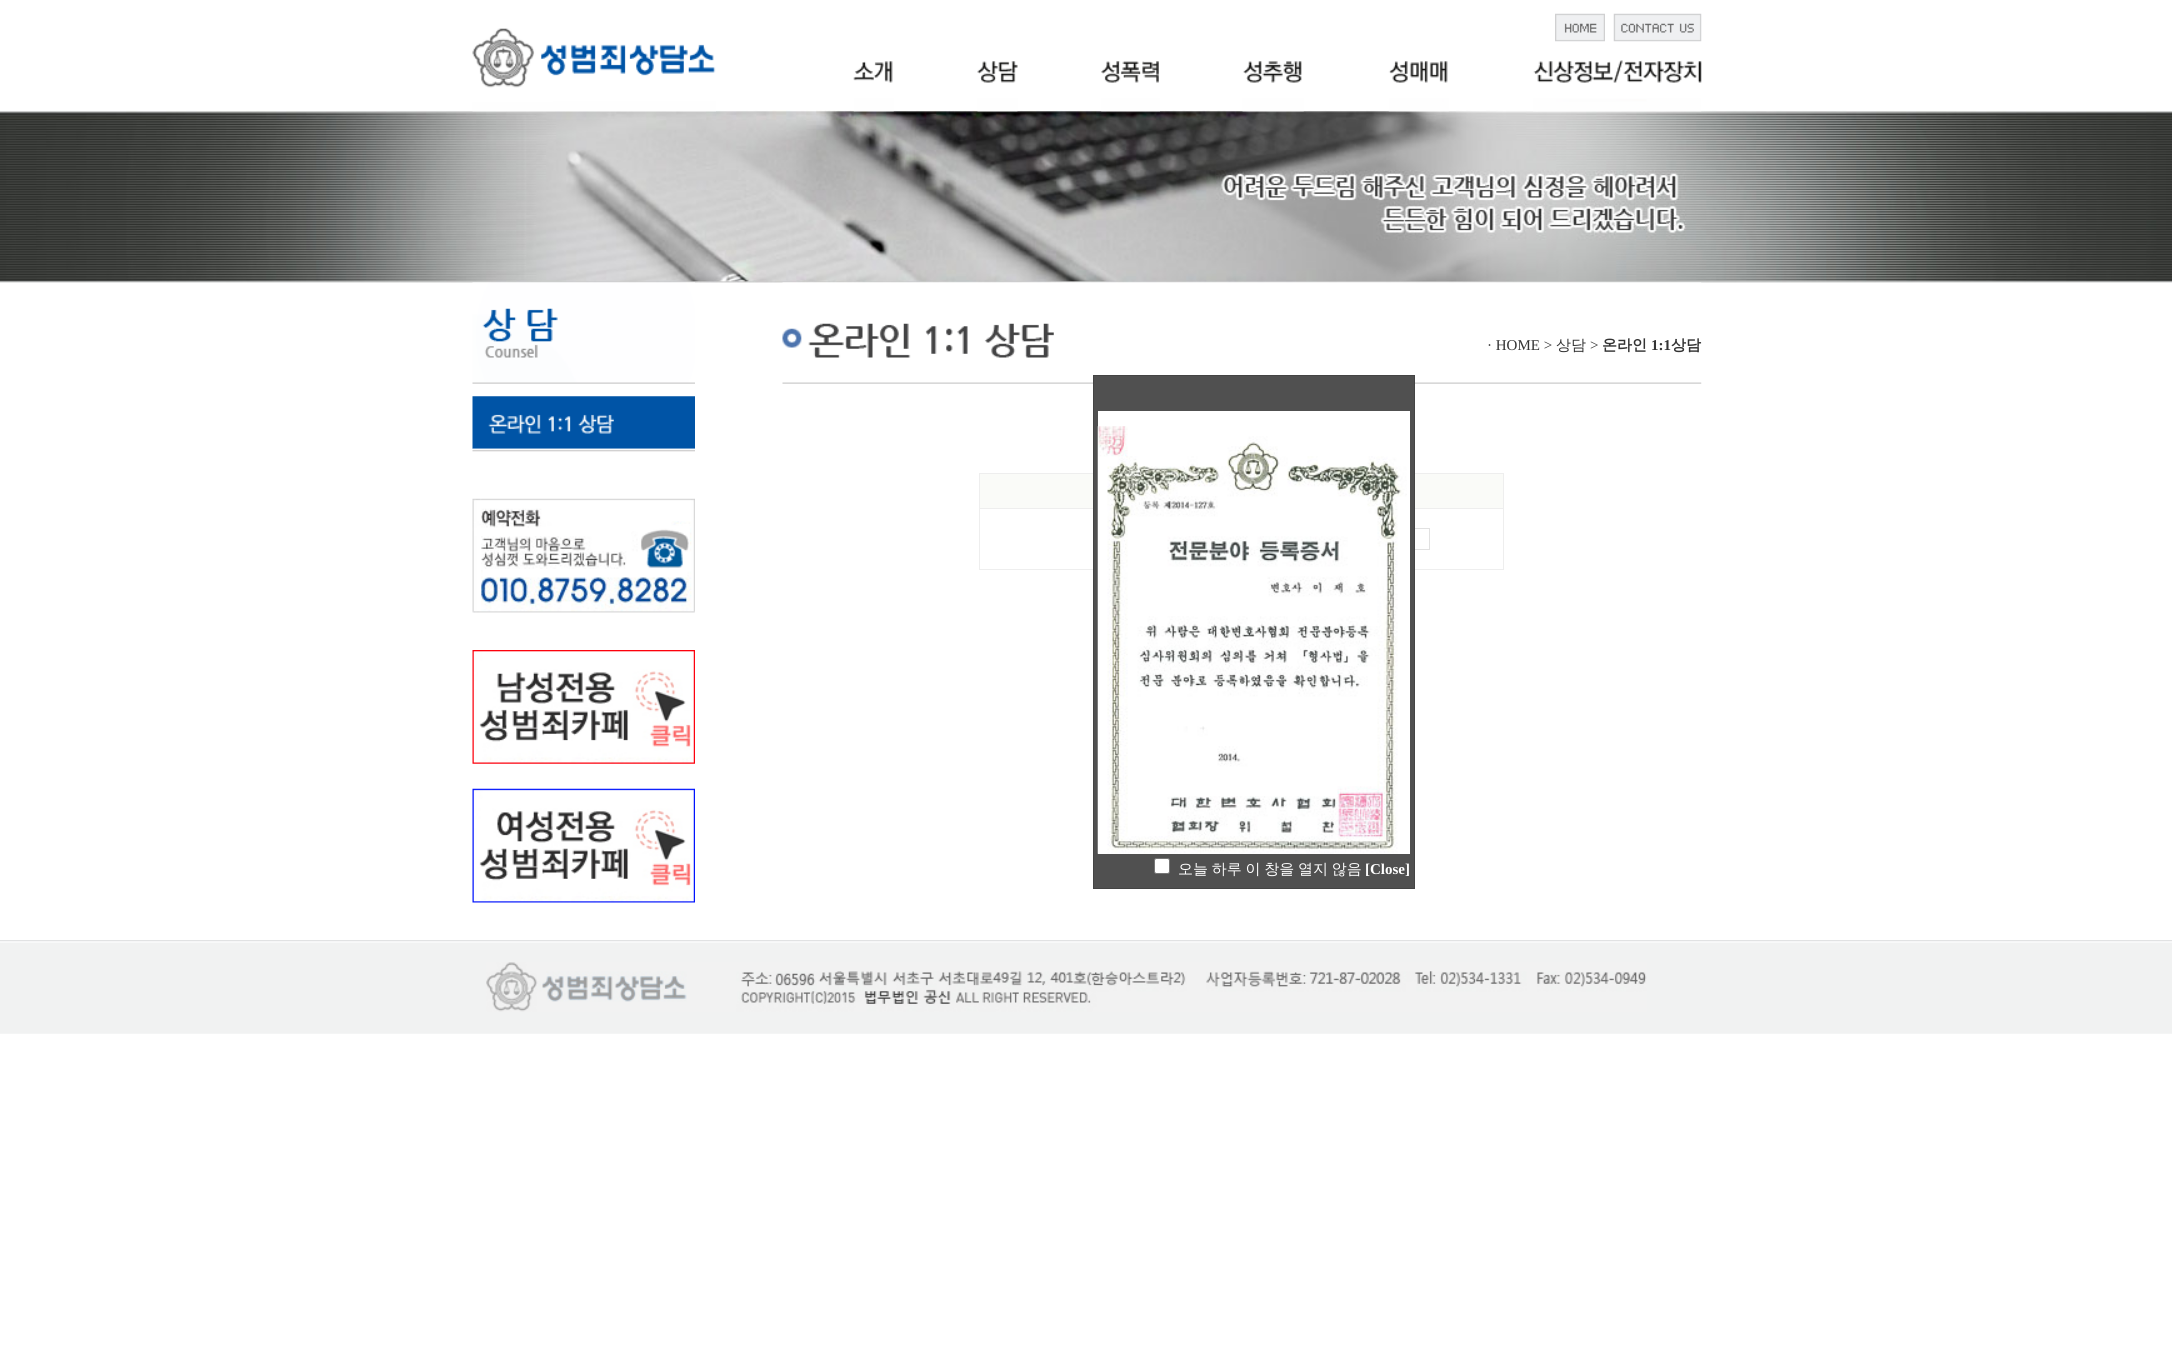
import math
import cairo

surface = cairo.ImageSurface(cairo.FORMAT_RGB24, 2172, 1353)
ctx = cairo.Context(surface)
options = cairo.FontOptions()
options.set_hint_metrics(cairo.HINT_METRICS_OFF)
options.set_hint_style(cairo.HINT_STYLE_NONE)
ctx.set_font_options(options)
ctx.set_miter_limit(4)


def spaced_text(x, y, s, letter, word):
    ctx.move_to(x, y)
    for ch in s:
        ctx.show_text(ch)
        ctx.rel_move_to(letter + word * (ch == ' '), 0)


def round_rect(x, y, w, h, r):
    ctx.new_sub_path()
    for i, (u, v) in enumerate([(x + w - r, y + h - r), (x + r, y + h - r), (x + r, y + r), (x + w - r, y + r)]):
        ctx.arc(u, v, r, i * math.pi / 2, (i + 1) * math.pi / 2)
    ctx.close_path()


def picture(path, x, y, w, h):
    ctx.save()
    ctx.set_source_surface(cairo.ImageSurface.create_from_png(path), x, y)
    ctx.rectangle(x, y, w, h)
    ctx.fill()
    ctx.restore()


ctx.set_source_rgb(1, 1, 1)
ctx.paint()
picture("img1.png", 0, 110, 2172, 173)
picture("img2.png", 472, 28, 244, 84)
picture("img3.png", 1555, 13, 50, 29)
picture("img4.png", 1613, 13, 89, 29)
picture("img5.png", 853, 61, 41, 51)
picture("img6.png", 977, 61, 41, 51)
picture("img7.png", 1101, 61, 59, 51)
picture("img8.png", 1242, 61, 62, 51)
picture("img9.png", 1388, 61, 61, 51)
picture("img10.png", 1533, 60, 169, 52)
picture("img11.png", 472, 282, 223, 102)
picture("img12.png", 472, 396, 223, 53)
picture("img13.png", 472, 448, 223, 4)
picture("img14.png", 472, 498, 223, 115)
picture("img15.png", 472, 650, 223, 114)
picture("img16.png", 472, 788, 223, 115)
picture("img17.png", 782, 282, 920, 102)
ctx.select_font_face("Liberation Serif")
ctx.set_font_size(15)
ctx.set_source_rgb(0.2, 0.2, 0.2)
ctx.move_to(1487, 350)
ctx.show_text("· HOME >")
ctx.select_font_face("WenQuanYi Zen Hei Medium")
ctx.move_to(1556, 350)
ctx.show_text("상담")
ctx.select_font_face("Liberation Serif")
ctx.move_to(1590, 350)
ctx.show_text(">")
ctx.select_font_face("WenQuanYi Zen Hei", cairo.FONT_SLANT_NORMAL, cairo.FONT_WEIGHT_BOLD)
ctx.move_to(1602, 350)
ctx.show_text("온라인")
ctx.select_font_face("Liberation Serif", cairo.FONT_SLANT_NORMAL, cairo.FONT_WEIGHT_BOLD)
ctx.move_to(1651, 350)
ctx.show_text("1:1")
ctx.select_font_face("WenQuanYi Zen Hei", cairo.FONT_SLANT_NORMAL, cairo.FONT_WEIGHT_BOLD)
ctx.move_to(1671, 350)
ctx.show_text("상담")
ctx.rectangle(979.5, 473.5, 524, 96)
ctx.set_source_rgb(0.933, 0.933, 0.933)
ctx.set_line_width(1)
ctx.stroke()
ctx.set_source_rgb(0.98, 0.984, 0.969)
ctx.rectangle(980, 474, 523, 34)
ctx.fill()
ctx.set_source_rgb(0.933, 0.933, 0.933)
ctx.rectangle(980, 508, 523, 1)
ctx.fill()
ctx.rectangle(1141.5, 528.5, 288, 21)
ctx.set_source_rgb(0.882, 0.882, 0.882)
ctx.stroke()
ctx.set_source_rgb(0.314, 0.314, 0.314)
ctx.rectangle(1093.5, 375.5, 321, 513)
ctx.fill_preserve()
ctx.set_source_rgb(0.267, 0.267, 0.267)
ctx.stroke()
ctx.set_source_rgb(1, 1, 1)
ctx.rectangle(1098, 411, 312, 443)
ctx.fill()
picture("img18.png", 1097, 426, 310, 428)
round_rect(1154.5, 858.5, 15, 15, 2)
ctx.fill_preserve()
ctx.set_source_rgb(0.463, 0.463, 0.463)
ctx.stroke()
ctx.select_font_face("WenQuanYi Zen Hei Medium")
ctx.set_source_rgb(1, 1, 1)
spaced_text(1178, 874, "오늘 하루 이 창을 열지 않음", 0, -0.75)
ctx.select_font_face("Liberation Serif", cairo.FONT_SLANT_NORMAL, cairo.FONT_WEIGHT_BOLD)
ctx.move_to(1365, 874)
ctx.show_text("[Close]")
picture("img19.png", 0, 940, 2172, 94)
picture("img20.png", 486, 962, 1161, 50)
surface.write_to_png("page.png")
